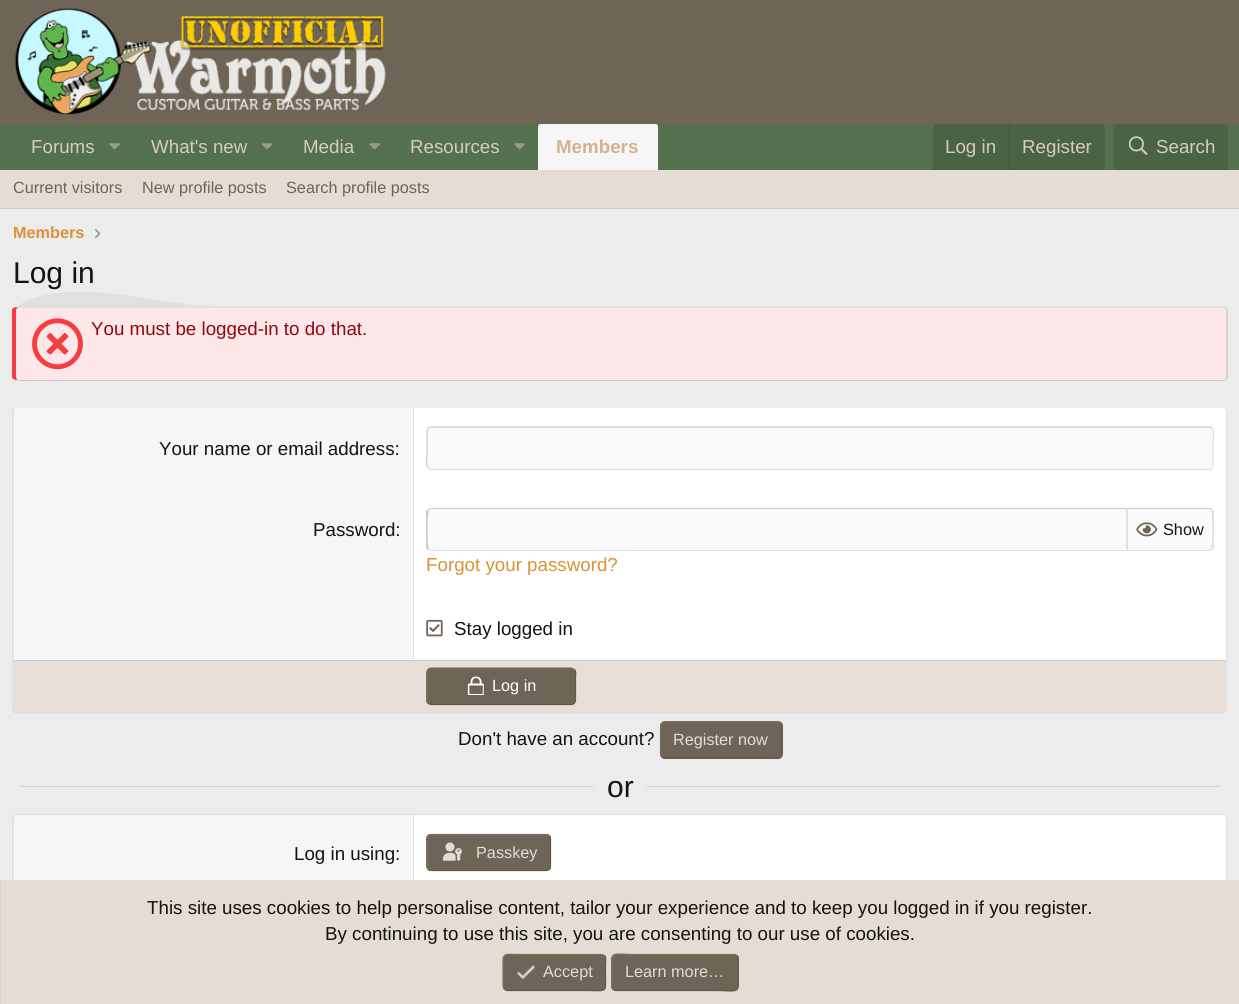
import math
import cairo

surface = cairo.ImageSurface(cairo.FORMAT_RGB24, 1239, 1004)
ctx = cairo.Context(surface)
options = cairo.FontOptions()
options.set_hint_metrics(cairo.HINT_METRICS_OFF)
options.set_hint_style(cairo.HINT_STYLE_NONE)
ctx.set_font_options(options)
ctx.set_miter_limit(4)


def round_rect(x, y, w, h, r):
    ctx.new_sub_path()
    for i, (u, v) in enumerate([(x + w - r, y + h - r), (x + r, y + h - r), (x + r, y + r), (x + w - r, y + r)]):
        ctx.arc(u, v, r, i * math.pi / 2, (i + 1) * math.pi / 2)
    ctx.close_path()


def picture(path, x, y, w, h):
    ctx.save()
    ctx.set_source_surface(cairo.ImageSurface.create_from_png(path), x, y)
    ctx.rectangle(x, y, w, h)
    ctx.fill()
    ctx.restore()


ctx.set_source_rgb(0.922, 0.922, 0.922)
ctx.paint()
ctx.set_source_rgb(0.431, 0.396, 0.341)
ctx.rectangle(0, 0, 1239, 124)
ctx.fill()
picture("img1.png", 14, 8, 372, 107)
ctx.set_source_rgb(0.322, 0.443, 0.298)
ctx.rectangle(0, 124, 1239, 46)
ctx.fill()
ctx.select_font_face("Liberation Sans")
ctx.set_font_size(18.75)
ctx.set_source_rgb(0.839, 0.8, 0.753)
ctx.move_to(31, 153)
ctx.show_text("Forums")
picture("img2.png", 109, 143, 11, 7)
ctx.move_to(151, 153)
ctx.show_text("What's new")
picture("img3.png", 261, 143, 12, 7)
ctx.move_to(303, 153)
ctx.show_text("Media")
picture("img2.png", 369, 143, 11, 7)
ctx.move_to(410, 153)
ctx.show_text("Resources")
picture("img2.png", 514, 143, 11, 7)
ctx.set_source_rgb(0.961, 0.961, 0.961)
ctx.new_path()
ctx.move_to(540.5, 124)
ctx.line_to(655.5, 124)
ctx.curve_to(657, 124, 658, 125, 658, 126.5)
ctx.line_to(658, 170)
ctx.line_to(538, 170)
ctx.line_to(538, 126.5)
ctx.curve_to(538, 125, 539, 124, 540.5, 124)
ctx.close_path()
ctx.fill()
ctx.select_font_face("Liberation Sans", cairo.FONT_SLANT_NORMAL, cairo.FONT_WEIGHT_BOLD)
ctx.set_source_rgb(0.824, 0.702, 0.553)
ctx.move_to(556, 153)
ctx.show_text("Members")
ctx.set_source_rgb(0.286, 0.388, 0.267)
ctx.new_path()
ctx.move_to(938, 124)
ctx.line_to(1100, 124)
ctx.curve_to(1103, 124, 1105, 126, 1105, 129)
ctx.line_to(1105, 170)
ctx.line_to(933, 170)
ctx.line_to(933, 129)
ctx.curve_to(933, 126, 935, 124, 938, 124)
ctx.close_path()
ctx.fill()
ctx.select_font_face("Liberation Sans")
ctx.set_source_rgb(0.839, 0.8, 0.753)
ctx.move_to(945, 153)
ctx.show_text("Log in")
ctx.set_source_rgb(0.255, 0.341, 0.239)
ctx.rectangle(1009, 124, 1, 46)
ctx.fill()
ctx.set_source_rgb(0.839, 0.8, 0.753)
ctx.move_to(1022, 153)
ctx.show_text("Register")
ctx.set_source_rgb(0.286, 0.388, 0.267)
ctx.new_path()
ctx.move_to(1119, 124)
ctx.line_to(1223, 124)
ctx.curve_to(1226, 124, 1228, 126, 1228, 129)
ctx.line_to(1228, 170)
ctx.line_to(1114, 170)
ctx.line_to(1114, 129)
ctx.curve_to(1114, 126, 1116, 124, 1119, 124)
ctx.close_path()
ctx.fill()
picture("img4.png", 1129, 136, 19, 19)
ctx.set_source_rgb(0.839, 0.8, 0.753)
ctx.move_to(1156, 153)
ctx.show_text("Search")
ctx.set_source_rgb(0.898, 0.863, 0.827)
ctx.rectangle(0, 170, 1239, 38)
ctx.fill()
ctx.set_source_rgb(0.8, 0.8, 0.8)
ctx.rectangle(0, 208, 1239, 1)
ctx.fill()
ctx.set_font_size(16.25)
ctx.set_source_rgb(0.431, 0.396, 0.341)
ctx.move_to(13, 193)
ctx.show_text("Current visitors")
ctx.move_to(142, 193)
ctx.show_text("New profile posts")
ctx.move_to(286, 193)
ctx.show_text("Search profile posts")
ctx.select_font_face("Liberation Sans", cairo.FONT_SLANT_NORMAL, cairo.FONT_WEIGHT_BOLD)
ctx.set_source_rgb(0.855, 0.569, 0.22)
ctx.move_to(13, 238)
ctx.show_text("Members")
picture("img5.png", 95, 229, 5, 9)
ctx.select_font_face("Liberation Sans")
ctx.set_font_size(30)
ctx.set_source_rgb(0.078, 0.078, 0.078)
ctx.move_to(13, 283)
ctx.show_text("Log in")
ctx.set_source_rgb(0.996, 0.906, 0.91)
ctx.new_path()
ctx.move_to(18, 308)
ctx.line_to(1222, 308)
ctx.curve_to(1225, 308, 1226, 309, 1226, 311)
ctx.line_to(1226, 376)
ctx.curve_to(1226, 378, 1225, 380, 1222, 380)
ctx.line_to(18, 380)
ctx.curve_to(17, 380, 16, 378, 16, 376)
ctx.line_to(16, 311)
ctx.curve_to(16, 309, 17, 308, 18, 308)
ctx.close_path()
ctx.fill()
ctx.set_source_rgb(0.878, 0.878, 0.878)
ctx.new_path()
ctx.move_to(18, 308)
ctx.line_to(15, 307)
ctx.curve_to(73, 273, 150, 306, 217, 306)
ctx.line_to(1224, 306)
ctx.line_to(1226, 307)
ctx.line_to(1225, 309)
ctx.line_to(1222, 308)
ctx.close_path()
ctx.fill()
ctx.set_source_rgb(0.839, 0.839, 0.839)
ctx.new_path()
ctx.move_to(1228, 378)
ctx.line_to(1226, 380)
ctx.line_to(1225, 379)
ctx.line_to(1226, 376)
ctx.line_to(1226, 309)
ctx.line_to(1225, 309)
ctx.line_to(1226, 307)
ctx.line_to(1228, 309)
ctx.close_path()
ctx.fill()
ctx.set_source_rgb(0.8, 0.8, 0.8)
ctx.new_path()
ctx.move_to(1226, 380)
ctx.line_to(1222, 381)
ctx.line_to(18, 381)
ctx.line_to(15, 380)
ctx.line_to(17, 380)
ctx.line_to(1222, 380)
ctx.curve_to(1223, 380, 1224, 380, 1225, 379)
ctx.close_path()
ctx.fill()
ctx.set_source_rgb(0.961, 0.239, 0.263)
ctx.new_path()
ctx.move_to(12, 309)
ctx.line_to(15, 307)
ctx.line_to(18, 308)
ctx.curve_to(17, 308, 16, 309, 16, 311)
ctx.line_to(16, 376)
ctx.curve_to(16, 378, 17, 379, 17, 380)
ctx.line_to(15, 380)
ctx.line_to(12, 378)
ctx.close_path()
ctx.fill()
picture("img6.png", 32, 318, 51, 52)
ctx.set_font_size(18.75)
ctx.set_source_rgb(0.569, 0.031, 0.047)
ctx.move_to(91, 335)
ctx.show_text("You must be logged-in to do that.")
ctx.set_source_rgb(1, 1, 1)
round_rect(13, 406, 1215, 308, 5)
ctx.fill()
ctx.new_path()
ctx.move_to(14.5, 408)
ctx.line_to(17.5, 407)
ctx.line_to(1222.5, 407)
ctx.line_to(1225.5, 408)
ctx.set_source_rgb(0.878, 0.878, 0.878)
ctx.set_line_width(1.2)
ctx.stroke()
ctx.new_path()
ctx.move_to(1225.5, 408)
ctx.curve_to(1226.5, 409, 1227, 410, 1227, 411)
ctx.line_to(1227, 709)
ctx.curve_to(1227, 710, 1226.5, 711, 1225.5, 712)
ctx.set_source_rgb(0.839, 0.839, 0.839)
ctx.stroke()
ctx.new_path()
ctx.move_to(1225.5, 712)
ctx.line_to(1222.5, 713)
ctx.line_to(17.5, 713)
ctx.line_to(14.5, 712)
ctx.set_source_rgb(0.8, 0.8, 0.8)
ctx.stroke()
ctx.new_path()
ctx.move_to(14.5, 712)
ctx.curve_to(13.5, 711, 13, 710, 13, 709)
ctx.line_to(13, 411)
ctx.curve_to(13, 410, 13.5, 409, 14.5, 408)
ctx.set_source_rgb(0.839, 0.839, 0.839)
ctx.stroke()
ctx.set_source_rgb(0.961, 0.961, 0.961)
ctx.new_path()
ctx.move_to(18, 408)
ctx.line_to(414, 408)
ctx.line_to(414, 489)
ctx.line_to(14, 489)
ctx.line_to(14, 412)
ctx.curve_to(14, 410, 16, 408, 18, 408)
ctx.close_path()
ctx.fill()
ctx.set_source_rgb(0.878, 0.878, 0.878)
ctx.rectangle(413, 408, 1, 252)
ctx.fill()
ctx.set_source_rgb(0.078, 0.078, 0.078)
ctx.move_to(159, 455)
ctx.show_text("Your name or email address:")
ctx.set_source_rgb(0.98, 0.98, 0.98)
round_rect(426, 426, 788, 44, 5)
ctx.fill()
ctx.new_path()
ctx.move_to(1212, 428)
ctx.curve_to(1214.5, 431, 1213, 439.5, 1213, 442.5)
ctx.line_to(1213, 459.5)
ctx.curve_to(1213, 462.5, 1214, 468.5, 1209.5, 469.5)
ctx.line_to(431, 469.5)
ctx.line_to(428, 468)
ctx.set_source_rgb(0.878, 0.878, 0.878)
ctx.stroke()
ctx.new_path()
ctx.move_to(428, 468)
ctx.curve_to(425.5, 465.5, 427, 456.5, 427, 454)
ctx.line_to(427, 437)
ctx.curve_to(427, 433.5, 426, 428, 430.5, 427)
ctx.line_to(1209, 427)
ctx.line_to(1212, 428)
ctx.set_source_rgb(0.8, 0.8, 0.8)
ctx.stroke()
ctx.set_source_rgb(0.961, 0.961, 0.961)
ctx.rectangle(14, 489, 399, 171)
ctx.fill()
ctx.set_source_rgb(0.078, 0.078, 0.078)
ctx.move_to(313, 536)
ctx.show_text("Password:")
ctx.set_source_rgb(0.98, 0.98, 0.98)
ctx.new_path()
ctx.move_to(431, 508)
ctx.line_to(1126, 508)
ctx.line_to(1126, 551)
ctx.line_to(431, 551)
ctx.curve_to(428, 551, 426, 549, 426, 546)
ctx.line_to(426, 513)
ctx.curve_to(426, 510, 428, 508, 431, 508)
ctx.close_path()
ctx.fill()
ctx.set_source_rgb(0.8, 0.8, 0.8)
ctx.new_path()
ctx.move_to(431, 508)
ctx.line_to(1126, 508)
ctx.line_to(1126, 509)
ctx.line_to(431, 509)
ctx.line_to(429, 510)
ctx.line_to(428, 509)
ctx.close_path()
ctx.fill()
ctx.set_source_rgb(0.878, 0.878, 0.878)
ctx.new_path()
ctx.move_to(429, 549)
ctx.line_to(428, 550)
ctx.line_to(431, 551)
ctx.line_to(1126, 551)
ctx.line_to(1126, 550)
ctx.line_to(431, 550)
ctx.close_path()
ctx.fill()
ctx.set_source_rgb(0.8, 0.8, 0.8)
ctx.new_path()
ctx.move_to(429, 549)
ctx.line_to(428, 550)
ctx.line_to(426, 548)
ctx.line_to(426, 511)
ctx.line_to(428, 509)
ctx.line_to(429, 510)
ctx.curve_to(427, 511, 427, 546, 429, 549)
ctx.close_path()
ctx.fill()
ctx.set_source_rgb(0.98, 0.98, 0.98)
ctx.new_path()
ctx.move_to(1126, 508)
ctx.line_to(1209, 508)
ctx.curve_to(1212, 508, 1214, 510, 1214, 513)
ctx.line_to(1214, 546)
ctx.curve_to(1214, 549, 1212, 551, 1209, 551)
ctx.line_to(1126, 551)
ctx.close_path()
ctx.fill()
ctx.set_source_rgb(0.8, 0.8, 0.8)
ctx.new_path()
ctx.move_to(1128, 509)
ctx.line_to(1210, 509)
ctx.line_to(1211, 510)
ctx.line_to(1212, 509)
ctx.curve_to(1211, 508, 1210, 508, 1209, 508)
ctx.line_to(1127, 508)
ctx.close_path()
ctx.fill()
ctx.set_source_rgb(0.878, 0.878, 0.878)
ctx.new_path()
ctx.move_to(1212, 509)
ctx.line_to(1214, 511)
ctx.line_to(1214, 548)
ctx.line_to(1212, 550)
ctx.line_to(1211, 549)
ctx.curve_to(1213, 546, 1213, 511, 1211, 510)
ctx.close_path()
ctx.fill()
ctx.new_path()
ctx.move_to(1212, 550)
ctx.curve_to(1212, 551, 1210, 551, 1209, 551)
ctx.line_to(1126, 551)
ctx.line_to(1128, 550)
ctx.line_to(1209, 550)
ctx.line_to(1211, 549)
ctx.close_path()
ctx.fill()
ctx.new_path()
ctx.move_to(1126, 508)
ctx.line_to(1128, 509)
ctx.line_to(1128, 550)
ctx.line_to(1126, 551)
ctx.close_path()
ctx.fill()
picture("img7.png", 1136, 522, 22, 15)
ctx.set_font_size(16.25)
ctx.set_source_rgb(0.078, 0.078, 0.078)
ctx.move_to(1163, 535)
ctx.show_text("Show")
ctx.set_font_size(18.75)
ctx.set_source_rgb(0.855, 0.569, 0.22)
ctx.move_to(426, 571)
ctx.show_text("Forgot your password?")
picture("img8.png", 426, 619, 17, 18)
ctx.set_source_rgb(0.078, 0.078, 0.078)
ctx.move_to(454, 635)
ctx.show_text("Stay logged in")
ctx.set_source_rgba(0.898, 0.863, 0.827, 0.9)
ctx.new_path()
ctx.move_to(14, 660)
ctx.line_to(1226, 660)
ctx.line_to(1226, 709)
ctx.curve_to(1226, 711, 1224, 713, 1222, 713)
ctx.line_to(18, 713)
ctx.curve_to(16, 713, 14, 711, 14, 709)
ctx.close_path()
ctx.fill()
ctx.set_source_rgb(0.8, 0.8, 0.8)
ctx.rectangle(14, 660, 1212, 1)
ctx.fill()
ctx.set_source_rgb(0.431, 0.396, 0.341)
round_rect(426, 668, 150, 37, 5)
ctx.fill()
ctx.new_path()
ctx.move_to(574.5, 669.5)
ctx.curve_to(576.5, 671.5, 575.5, 674.5, 575.5, 677)
ctx.line_to(575.5, 695.5)
ctx.curve_to(575.5, 699, 576, 704.5, 571, 704.5)
ctx.line_to(431, 704.5)
ctx.line_to(428, 703)
ctx.set_source_rgb(0.376, 0.345, 0.298)
ctx.stroke()
ctx.new_path()
ctx.move_to(428, 703)
ctx.curve_to(426, 701, 427, 698, 427, 695.5)
ctx.line_to(427, 677)
ctx.curve_to(427, 673.5, 426.5, 668, 431, 668)
ctx.line_to(571.5, 668)
ctx.line_to(574.5, 669.5)
ctx.set_source_rgb(0.486, 0.447, 0.384)
ctx.stroke()
picture("img9.png", 467, 676, 17, 19)
ctx.set_font_size(16.25)
ctx.set_source_rgb(1, 1, 1)
ctx.move_to(492, 691)
ctx.show_text("Log in")
ctx.set_font_size(18.75)
ctx.set_source_rgb(0.078, 0.078, 0.078)
ctx.move_to(458, 745)
ctx.show_text("Don't have an account?")
ctx.set_source_rgb(0.431, 0.396, 0.341)
round_rect(660, 721, 123, 38, 5)
ctx.fill()
ctx.new_path()
ctx.move_to(780.5, 723)
ctx.curve_to(782.5, 725, 782, 728.5, 782, 731)
ctx.line_to(782, 740)
ctx.curve_to(782, 762.5, 784, 758, 759, 758)
ctx.line_to(665, 758)
ctx.line_to(662, 757)
ctx.set_source_rgb(0.376, 0.345, 0.298)
ctx.stroke()
ctx.new_path()
ctx.move_to(662, 757)
ctx.curve_to(660, 755, 660.5, 751.5, 660.5, 749)
ctx.line_to(660.5, 740)
ctx.curve_to(660.5, 717.5, 658.5, 722, 684, 722)
ctx.line_to(777.5, 722)
ctx.line_to(780.5, 723)
ctx.set_source_rgb(0.486, 0.447, 0.384)
ctx.stroke()
ctx.set_font_size(16.25)
ctx.set_source_rgb(0.898, 0.863, 0.827)
ctx.move_to(673, 745)
ctx.show_text("Register now")
ctx.set_source_rgb(0.839, 0.839, 0.839)
ctx.rectangle(20, 786, 574, 1)
ctx.fill()
ctx.set_font_size(30)
ctx.set_source_rgb(0.078, 0.078, 0.078)
ctx.move_to(607, 797)
ctx.show_text("or")
ctx.set_source_rgb(0.839, 0.839, 0.839)
ctx.rectangle(646, 786, 574, 1)
ctx.fill()
ctx.set_source_rgb(1, 1, 1)
round_rect(13, 814, 1215, 77, 5)
ctx.fill()
ctx.new_path()
ctx.move_to(14.5, 815.5)
ctx.line_to(17.5, 814.5)
ctx.line_to(1222.5, 814.5)
ctx.line_to(1225.5, 815.5)
ctx.set_source_rgb(0.878, 0.878, 0.878)
ctx.stroke()
ctx.new_path()
ctx.move_to(1225.5, 815.5)
ctx.line_to(1227, 818.5)
ctx.line_to(1227, 886.5)
ctx.line_to(1225.5, 889.5)
ctx.set_source_rgb(0.839, 0.839, 0.839)
ctx.stroke()
ctx.new_path()
ctx.move_to(14.5, 889.5)
ctx.line_to(13, 886.5)
ctx.line_to(13, 818.5)
ctx.line_to(14.5, 815.5)
ctx.stroke()
ctx.set_source_rgb(0.961, 0.961, 0.961)
ctx.new_path()
ctx.move_to(18, 815)
ctx.line_to(414, 815)
ctx.line_to(414, 890)
ctx.line_to(18, 890)
ctx.curve_to(16, 890, 14, 888, 14, 886)
ctx.line_to(14, 819)
ctx.curve_to(14, 817, 16, 815, 18, 815)
ctx.close_path()
ctx.fill()
ctx.set_source_rgb(0.878, 0.878, 0.878)
ctx.rectangle(413, 815, 1, 65)
ctx.fill()
ctx.set_font_size(18.75)
ctx.set_source_rgb(0.078, 0.078, 0.078)
ctx.move_to(294, 860)
ctx.show_text("Log in using:")
ctx.set_source_rgb(0.431, 0.396, 0.341)
round_rect(426, 834, 125, 37, 5)
ctx.fill()
ctx.new_path()
ctx.move_to(549.5, 835.5)
ctx.curve_to(550, 836.5, 550.5, 837.5, 550.5, 839)
ctx.line_to(550.5, 866)
ctx.curve_to(550.5, 867.5, 550, 868.5, 549.5, 869.5)
ctx.curve_to(548.5, 870, 547.5, 870.5, 546, 870.5)
ctx.line_to(431, 870.5)
ctx.curve_to(430, 870.5, 429, 870, 428, 869.5)
ctx.set_source_rgb(0.376, 0.345, 0.298)
ctx.stroke()
ctx.new_path()
ctx.move_to(428, 869.5)
ctx.curve_to(427.5, 868.5, 427, 867.5, 427, 866)
ctx.line_to(427, 839)
ctx.curve_to(427, 837.5, 427.5, 836.5, 428, 835.5)
ctx.curve_to(429, 835, 430, 834.5, 431, 834.5)
ctx.line_to(546, 834.5)
ctx.curve_to(547.5, 834.5, 548.5, 835, 549.5, 835.5)
ctx.set_source_rgb(0.486, 0.447, 0.384)
ctx.stroke()
picture("img10.png", 442, 842, 20, 20)
ctx.set_font_size(16.25)
ctx.set_source_rgb(0.898, 0.863, 0.827)
ctx.move_to(476, 858)
ctx.show_text("Passkey")
ctx.rectangle(1, 881, 1238, 123)
ctx.fill()
ctx.set_source_rgb(0.878, 0.878, 0.878)
ctx.rectangle(0, 880, 1239, 1)
ctx.fill()
ctx.set_source_rgb(0.839, 0.839, 0.839)
ctx.rectangle(0, 880, 1, 124)
ctx.fill()
ctx.set_font_size(18.75)
ctx.set_source_rgb(0.078, 0.078, 0.078)
ctx.move_to(147, 914)
ctx.show_text("This site uses cookies to help personalise content, tailor your experience and to keep you logged in if you register.")
ctx.move_to(325, 940)
ctx.show_text("By continuing to use this site, you are consenting to our use of cookies.")
ctx.set_source_rgb(0.431, 0.396, 0.341)
round_rect(503, 954, 103, 37, 5)
ctx.fill()
ctx.new_path()
ctx.move_to(604.5, 955.5)
ctx.curve_to(606.5, 957.5, 605.5, 961, 605.5, 963.5)
ctx.line_to(605.5, 972.5)
ctx.curve_to(605.5, 994, 608.5, 990.5, 585.5, 990.5)
ctx.line_to(507.5, 990.5)
ctx.line_to(504.5, 989.5)
ctx.set_source_rgb(0.376, 0.345, 0.298)
ctx.stroke()
ctx.new_path()
ctx.move_to(504.5, 989.5)
ctx.curve_to(502.5, 987.5, 503, 984, 503, 981.5)
ctx.line_to(503, 972.5)
ctx.curve_to(503, 951, 500.5, 954.5, 523, 954.5)
ctx.line_to(601, 954.5)
ctx.line_to(604.5, 955.5)
ctx.set_source_rgb(0.486, 0.447, 0.384)
ctx.stroke()
picture("img11.png", 517, 965, 19, 15)
ctx.set_font_size(16.25)
ctx.set_source_rgb(0.898, 0.863, 0.827)
ctx.move_to(543, 977)
ctx.show_text("Accept")
ctx.set_source_rgb(0.431, 0.396, 0.341)
round_rect(611, 954, 128, 37, 5)
ctx.fill()
ctx.new_path()
ctx.move_to(737, 955.5)
ctx.curve_to(739, 957.5, 738, 961, 738, 963.5)
ctx.line_to(738, 972.5)
ctx.curve_to(738, 995.5, 740.5, 990.5, 714, 990.5)
ctx.line_to(616, 990.5)
ctx.line_to(613, 989.5)
ctx.set_source_rgb(0.376, 0.345, 0.298)
ctx.stroke()
ctx.new_path()
ctx.move_to(613, 989.5)
ctx.curve_to(611, 987.5, 612, 984, 612, 981.5)
ctx.line_to(612, 972.5)
ctx.curve_to(612, 949.5, 609.5, 954.5, 636, 954.5)
ctx.line_to(734, 954.5)
ctx.line_to(737, 955.5)
ctx.set_source_rgb(0.486, 0.447, 0.384)
ctx.stroke()
ctx.set_source_rgb(0.898, 0.863, 0.827)
ctx.move_to(625, 977)
ctx.show_text("Learn more…")
surface.write_to_png("page.png")
